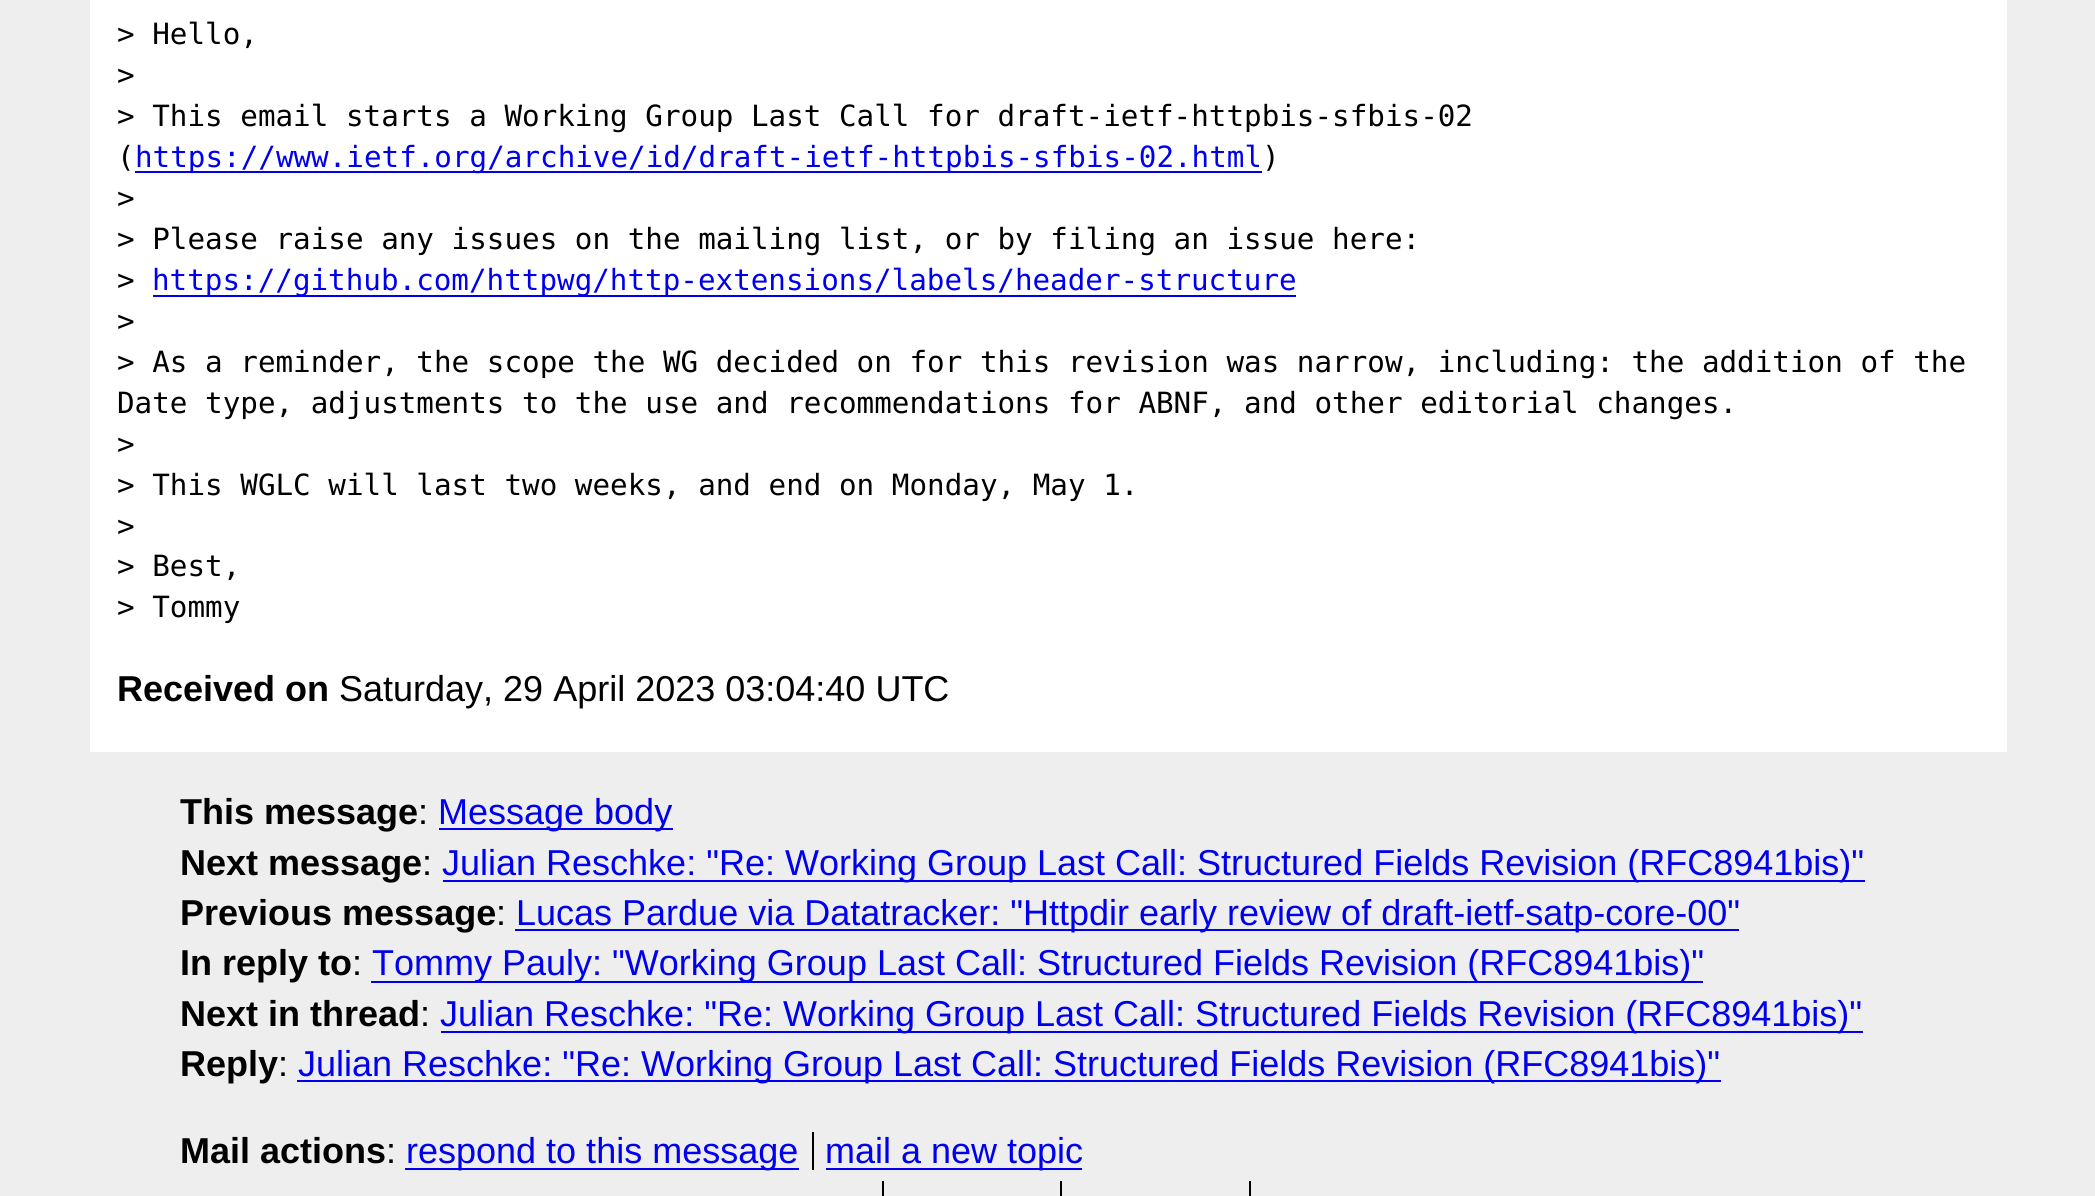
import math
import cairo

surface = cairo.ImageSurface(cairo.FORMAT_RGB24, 2095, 1196)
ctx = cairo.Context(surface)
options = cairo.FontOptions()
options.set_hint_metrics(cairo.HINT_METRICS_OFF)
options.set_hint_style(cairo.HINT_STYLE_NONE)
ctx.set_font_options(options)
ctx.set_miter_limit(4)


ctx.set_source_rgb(0.933, 0.933, 0.933)
ctx.paint()
ctx.set_source_rgb(1, 1, 1)
ctx.rectangle(90, 0, 1917, 752)
ctx.fill()
ctx.select_font_face("DejaVu Sans Mono")
ctx.set_font_size(29.25)
ctx.set_source_rgb(0, 0, 0)
ctx.move_to(117, 44)
ctx.show_text("> Hello,")
ctx.move_to(117, 85)
ctx.show_text(">")
ctx.move_to(117, 126)
ctx.show_text("> This email starts a Working Group Last Call for draft-ietf-httpbis-sfbis-02")
ctx.move_to(117, 167)
ctx.show_text("(")
ctx.set_source_rgb(0, 0, 0.933)
ctx.rectangle(135, 171, 1127, 2)
ctx.fill()
ctx.move_to(135, 167)
ctx.show_text("https://www.ietf.org/archive/id/draft-ietf-httpbis-sfbis-02.html")
ctx.set_source_rgb(0, 0, 0)
ctx.move_to(1262, 167)
ctx.show_text(")")
ctx.move_to(117, 208)
ctx.show_text(">")
ctx.move_to(117, 249)
ctx.show_text("> Please raise any issues on the mailing list, or by filing an issue here:")
ctx.move_to(117, 290)
ctx.show_text(">")
ctx.set_source_rgb(0, 0, 0.933)
ctx.rectangle(153, 295, 1143, 2)
ctx.fill()
ctx.move_to(152, 290)
ctx.show_text("https://github.com/httpwg/http-extensions/labels/header-structure")
ctx.set_source_rgb(0, 0, 0)
ctx.move_to(117, 331)
ctx.show_text(">")
ctx.move_to(117, 372)
ctx.show_text("> As a reminder, the scope the WG decided on for this revision was narrow, including: the addition of the")
ctx.move_to(117, 413)
ctx.show_text("Date type, adjustments to the use and recommendations for ABNF, and other editorial changes.")
ctx.move_to(117, 454)
ctx.show_text(">")
ctx.move_to(117, 495)
ctx.show_text("> This WGLC will last two weeks, and end on Monday, May 1.")
ctx.move_to(117, 536)
ctx.show_text(">")
ctx.move_to(117, 576)
ctx.show_text("> Best,")
ctx.move_to(117, 617)
ctx.show_text("> Tommy")
ctx.select_font_face("Liberation Sans", cairo.FONT_SLANT_NORMAL, cairo.FONT_WEIGHT_BOLD)
ctx.set_font_size(36)
ctx.move_to(117, 701)
ctx.show_text("Received on")
ctx.select_font_face("Liberation Sans")
ctx.move_to(339, 701)
ctx.show_text("Saturday, 29 April 2023 03:04:40 UTC")
ctx.select_font_face("Liberation Sans", cairo.FONT_SLANT_NORMAL, cairo.FONT_WEIGHT_BOLD)
ctx.move_to(180, 824)
ctx.show_text("This message")
ctx.select_font_face("Liberation Sans")
ctx.move_to(418, 824)
ctx.show_text(":")
ctx.set_source_rgb(0, 0, 0.933)
ctx.rectangle(439, 828, 234, 2)
ctx.fill()
ctx.move_to(438, 824)
ctx.show_text("Message body")
ctx.select_font_face("Liberation Sans", cairo.FONT_SLANT_NORMAL, cairo.FONT_WEIGHT_BOLD)
ctx.set_source_rgb(0, 0, 0)
ctx.move_to(180, 875)
ctx.show_text("Next message")
ctx.select_font_face("Liberation Sans")
ctx.move_to(422, 875)
ctx.show_text(":")
ctx.set_source_rgb(0, 0, 0.933)
ctx.rectangle(443, 880, 1422, 2)
ctx.fill()
ctx.move_to(442, 875)
ctx.show_text("Julian Reschke: \"Re: Working Group Last Call: Structured Fields Revision (RFC8941bis)\"")
ctx.select_font_face("Liberation Sans", cairo.FONT_SLANT_NORMAL, cairo.FONT_WEIGHT_BOLD)
ctx.set_source_rgb(0, 0, 0)
ctx.move_to(180, 925)
ctx.show_text("Previous message")
ctx.select_font_face("Liberation Sans")
ctx.move_to(496, 925)
ctx.show_text(":")
ctx.set_source_rgb(0, 0, 0.933)
ctx.rectangle(515, 929, 1224, 2)
ctx.fill()
ctx.move_to(516, 925)
ctx.show_text("Lucas Pardue via Datatracker: \"Httpdir early review of draft-ietf-satp-core-00\"")
ctx.select_font_face("Liberation Sans", cairo.FONT_SLANT_NORMAL, cairo.FONT_WEIGHT_BOLD)
ctx.set_source_rgb(0, 0, 0)
ctx.move_to(180, 975)
ctx.show_text("In reply to")
ctx.select_font_face("Liberation Sans")
ctx.move_to(352, 975)
ctx.show_text(":")
ctx.set_source_rgb(0, 0, 0.933)
ctx.rectangle(371, 981, 1332, 2)
ctx.fill()
ctx.move_to(372, 975)
ctx.show_text("Tommy Pauly: \"Working Group Last Call: Structured Fields Revision (RFC8941bis)\"")
ctx.select_font_face("Liberation Sans", cairo.FONT_SLANT_NORMAL, cairo.FONT_WEIGHT_BOLD)
ctx.set_source_rgb(0, 0, 0)
ctx.move_to(180, 1026)
ctx.show_text("Next in thread")
ctx.select_font_face("Liberation Sans")
ctx.move_to(420, 1026)
ctx.show_text(":")
ctx.set_source_rgb(0, 0, 0.933)
ctx.rectangle(441, 1031, 1422, 2)
ctx.fill()
ctx.move_to(440, 1026)
ctx.show_text("Julian Reschke: \"Re: Working Group Last Call: Structured Fields Revision (RFC8941bis)\"")
ctx.select_font_face("Liberation Sans", cairo.FONT_SLANT_NORMAL, cairo.FONT_WEIGHT_BOLD)
ctx.set_source_rgb(0, 0, 0)
ctx.move_to(180, 1076)
ctx.show_text("Reply")
ctx.select_font_face("Liberation Sans")
ctx.move_to(278, 1076)
ctx.show_text(":")
ctx.set_source_rgb(0, 0, 0.933)
ctx.rectangle(297, 1080, 1424, 2)
ctx.fill()
ctx.move_to(298, 1076)
ctx.show_text("Julian Reschke: \"Re: Working Group Last Call: Structured Fields Revision (RFC8941bis)\"")
ctx.select_font_face("Liberation Sans", cairo.FONT_SLANT_NORMAL, cairo.FONT_WEIGHT_BOLD)
ctx.set_source_rgb(0, 0, 0)
ctx.move_to(180, 1163)
ctx.show_text("Mail actions")
ctx.select_font_face("Liberation Sans")
ctx.move_to(386, 1163)
ctx.show_text(":")
ctx.set_source_rgb(0, 0, 0.933)
ctx.rectangle(405, 1168, 394, 2)
ctx.fill()
ctx.move_to(406, 1163)
ctx.show_text("respond to this message")
ctx.rectangle(826, 1168, 256, 2)
ctx.fill()
ctx.move_to(825, 1163)
ctx.show_text("mail a new topic")
ctx.set_source_rgb(0, 0, 0)
ctx.rectangle(812, 1132, 2, 38)
ctx.fill()
ctx.rectangle(882, 1181, 2, 15)
ctx.fill()
ctx.rectangle(1060, 1181, 2, 15)
ctx.fill()
ctx.rectangle(1249, 1181, 2, 15)
ctx.fill()
surface.write_to_png("page.png")
